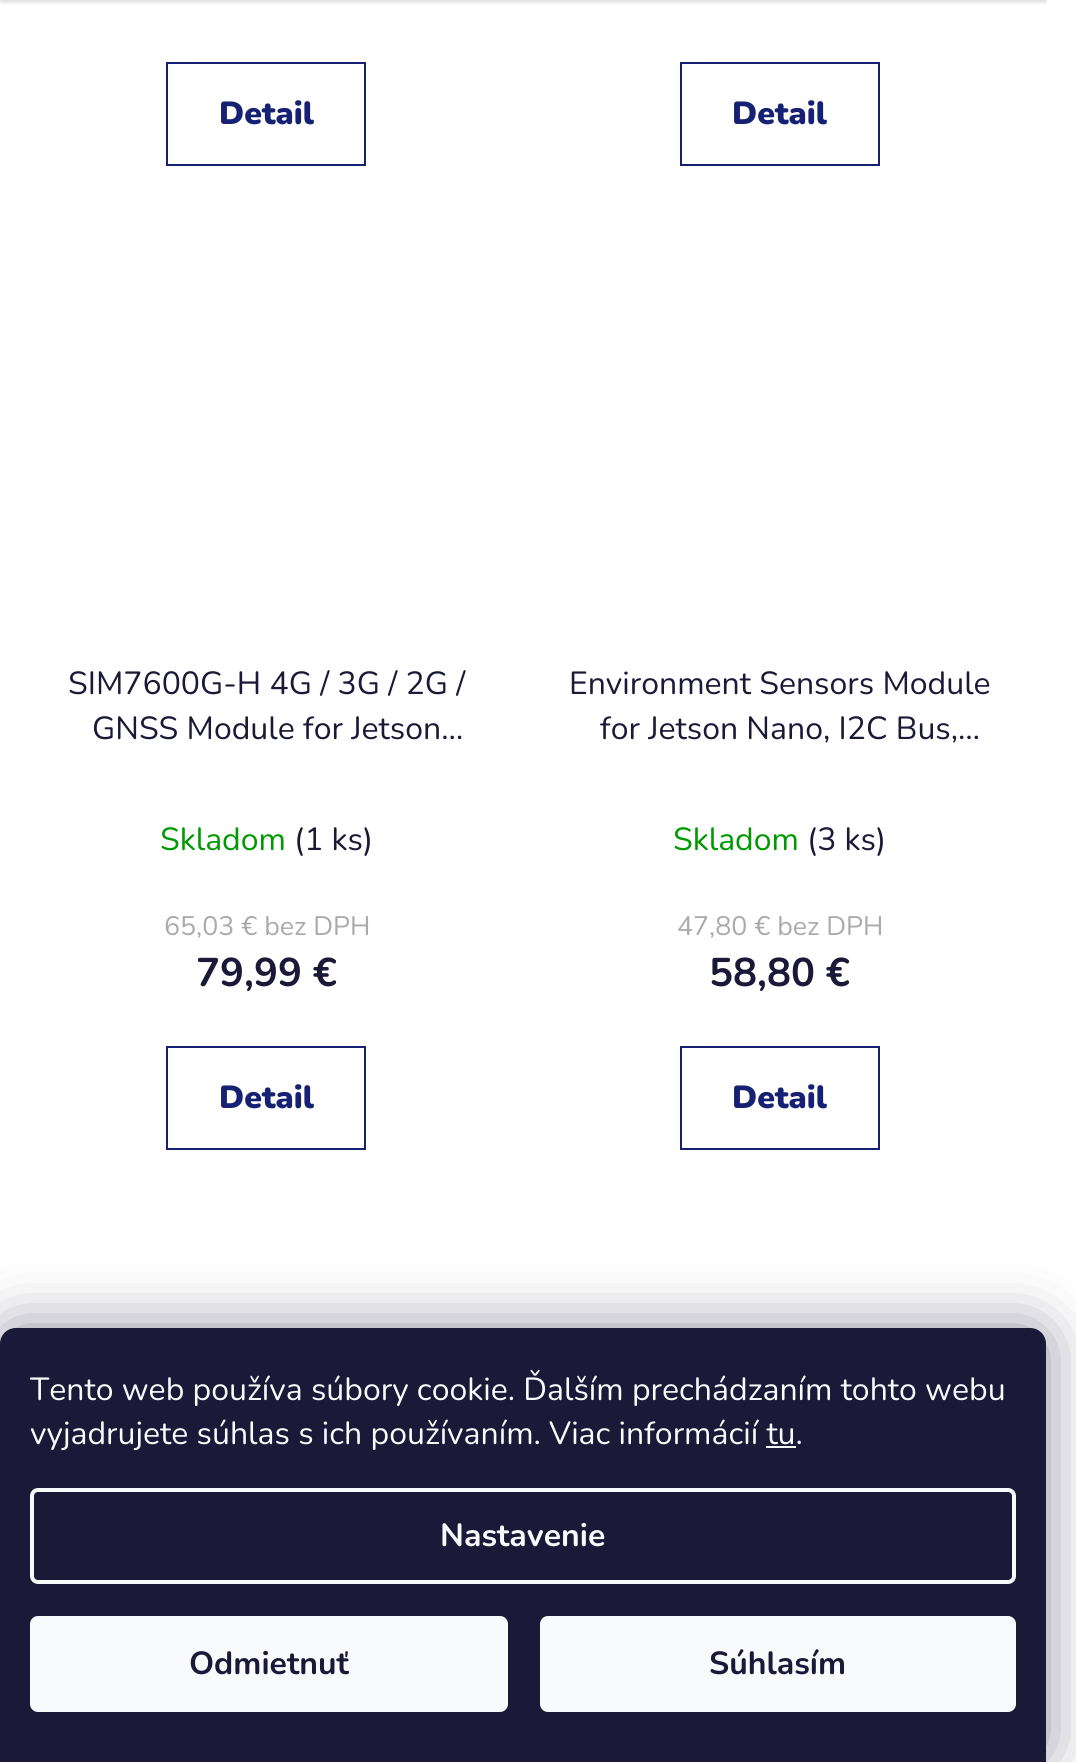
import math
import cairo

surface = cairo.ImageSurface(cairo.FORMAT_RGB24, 1076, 1762)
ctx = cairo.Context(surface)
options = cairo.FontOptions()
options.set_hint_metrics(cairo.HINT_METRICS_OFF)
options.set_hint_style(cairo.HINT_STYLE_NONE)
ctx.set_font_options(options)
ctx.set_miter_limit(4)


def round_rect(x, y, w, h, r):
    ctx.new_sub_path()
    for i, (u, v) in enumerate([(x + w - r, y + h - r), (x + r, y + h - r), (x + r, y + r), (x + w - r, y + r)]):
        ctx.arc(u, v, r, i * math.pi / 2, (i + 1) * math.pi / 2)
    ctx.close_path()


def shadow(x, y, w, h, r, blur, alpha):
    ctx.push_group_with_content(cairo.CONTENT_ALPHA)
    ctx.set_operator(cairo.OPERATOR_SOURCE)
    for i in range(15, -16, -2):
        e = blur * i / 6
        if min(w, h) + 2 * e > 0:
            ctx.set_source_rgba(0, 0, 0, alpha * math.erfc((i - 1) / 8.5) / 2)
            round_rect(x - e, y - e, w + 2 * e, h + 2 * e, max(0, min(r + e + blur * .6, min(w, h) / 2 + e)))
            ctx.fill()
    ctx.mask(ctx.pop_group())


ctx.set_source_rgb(1, 1, 1)
ctx.paint()
ctx.set_source_rgb(0, 0, 0)
shadow(0, -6, 1046, 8, 0, 2, 0.16)
ctx.rectangle(167, 63, 198, 102)
ctx.set_source_rgb(0.086, 0.129, 0.455)
ctx.stroke()
ctx.select_font_face("Nunito Black")
ctx.set_font_size(32)
ctx.move_to(219, 124)
ctx.show_text("Detail")
ctx.rectangle(681, 63, 198, 102)
ctx.stroke()
ctx.move_to(732, 124)
ctx.show_text("Detail")
ctx.select_font_face("Nunito")
ctx.set_source_rgb(0.102, 0.098, 0.216)
ctx.move_to(68, 694)
ctx.show_text("SIM7600G-H 4G / 3G / 2G /")
ctx.move_to(92, 739)
ctx.show_text("GNSS Module for Jetson…")
ctx.set_source_rgb(0, 0.6, 0.004)
ctx.move_to(160, 850)
ctx.show_text("Skladom")
ctx.set_source_rgb(0.102, 0.098, 0.216)
ctx.move_to(294, 850)
ctx.show_text("(1 ks)")
ctx.set_font_size(26.75)
ctx.set_source_rgb(0.667, 0.667, 0.667)
ctx.move_to(164, 935)
ctx.show_text("65,03 € bez DPH")
ctx.select_font_face("Nunito", cairo.FONT_SLANT_NORMAL, cairo.FONT_WEIGHT_BOLD)
ctx.set_font_size(40)
ctx.set_source_rgb(0.102, 0.098, 0.216)
ctx.move_to(196, 986)
ctx.show_text("79,99 €")
ctx.rectangle(167, 1047, 198, 102)
ctx.set_source_rgb(0.086, 0.129, 0.455)
ctx.stroke()
ctx.select_font_face("Nunito Black")
ctx.set_font_size(32)
ctx.move_to(219, 1108)
ctx.show_text("Detail")
ctx.select_font_face("Nunito")
ctx.set_source_rgb(0.102, 0.098, 0.216)
ctx.move_to(569, 694)
ctx.show_text("Environment Sensors Module")
ctx.move_to(600, 739)
ctx.show_text("for Jetson Nano, I2C Bus,…")
ctx.set_source_rgb(0, 0.6, 0.004)
ctx.move_to(673, 850)
ctx.show_text("Skladom")
ctx.set_source_rgb(0.102, 0.098, 0.216)
ctx.move_to(807, 850)
ctx.show_text("(3 ks)")
ctx.set_font_size(26.75)
ctx.set_source_rgb(0.667, 0.667, 0.667)
ctx.move_to(677, 935)
ctx.show_text("47,80 € bez DPH")
ctx.select_font_face("Nunito", cairo.FONT_SLANT_NORMAL, cairo.FONT_WEIGHT_BOLD)
ctx.set_font_size(40)
ctx.set_source_rgb(0.102, 0.098, 0.216)
ctx.move_to(709, 986)
ctx.show_text("58,80 €")
ctx.rectangle(681, 1047, 198, 102)
ctx.set_source_rgb(0.086, 0.129, 0.455)
ctx.stroke()
ctx.select_font_face("Nunito Black")
ctx.set_font_size(32)
ctx.move_to(732, 1108)
ctx.show_text("Detail")
ctx.set_source_rgb(0.106, 0.098, 0.224)
shadow(0, 1328, 1046, 434, 16, 30, 0.5)
ctx.set_source_rgb(0.102, 0.098, 0.216)
ctx.new_path()
ctx.move_to(16, 1328)
ctx.line_to(1030, 1328)
ctx.curve_to(1039, 1328, 1046, 1335, 1046, 1344)
ctx.line_to(1046, 1762)
ctx.line_to(0, 1762)
ctx.line_to(0, 1344)
ctx.curve_to(0, 1335, 7, 1328, 16, 1328)
ctx.close_path()
ctx.fill()
ctx.select_font_face("Nunito")
ctx.set_source_rgb(0.973, 0.98, 0.984)
ctx.move_to(30, 1400)
ctx.show_text("Tento web používa súbory cookie. Ďalším prechádzaním tohto webu")
ctx.move_to(30, 1444)
ctx.show_text("vyjadrujete súhlas s ich používaním. Viac informácií tu.")
ctx.rectangle(766, 1446, 30, 2)
ctx.fill()
round_rect(32, 1490, 982, 92, 6)
ctx.set_line_width(4)
ctx.stroke()
ctx.select_font_face("Nunito", cairo.FONT_SLANT_NORMAL, cairo.FONT_WEIGHT_BOLD)
ctx.move_to(440, 1546)
ctx.show_text("Nastavenie")
round_rect(30, 1616, 478, 96, 8)
ctx.fill()
ctx.set_source_rgb(0.102, 0.098, 0.216)
ctx.move_to(189, 1674)
ctx.show_text("Odmietnuť")
ctx.set_source_rgb(0.973, 0.98, 0.984)
round_rect(540, 1616, 476, 96, 8)
ctx.fill()
ctx.set_source_rgb(0.102, 0.098, 0.216)
ctx.move_to(709, 1674)
ctx.show_text("Súhlasím")
surface.write_to_png("page.png")
